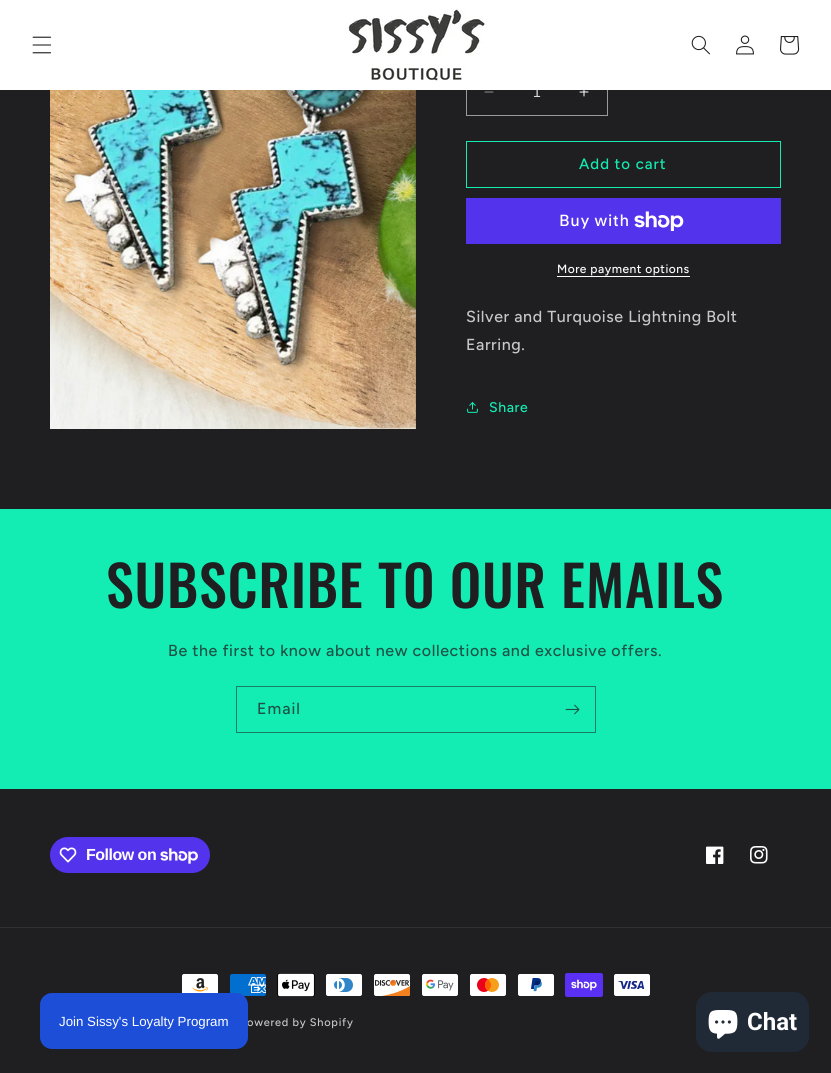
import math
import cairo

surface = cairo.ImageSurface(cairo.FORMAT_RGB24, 831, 1073)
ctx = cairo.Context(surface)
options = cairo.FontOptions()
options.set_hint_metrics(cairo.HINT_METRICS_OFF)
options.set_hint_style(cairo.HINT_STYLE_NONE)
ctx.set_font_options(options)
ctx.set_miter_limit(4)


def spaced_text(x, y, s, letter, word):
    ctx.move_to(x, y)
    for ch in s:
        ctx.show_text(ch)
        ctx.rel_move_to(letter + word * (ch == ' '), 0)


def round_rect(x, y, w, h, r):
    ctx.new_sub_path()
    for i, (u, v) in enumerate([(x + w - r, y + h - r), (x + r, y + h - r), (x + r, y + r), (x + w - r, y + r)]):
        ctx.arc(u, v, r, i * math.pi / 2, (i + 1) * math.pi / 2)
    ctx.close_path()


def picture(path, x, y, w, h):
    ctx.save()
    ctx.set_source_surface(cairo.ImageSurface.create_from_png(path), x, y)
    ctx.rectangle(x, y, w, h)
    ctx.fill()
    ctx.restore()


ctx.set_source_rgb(0.122, 0.122, 0.129)
ctx.paint()
picture("img7.png", 484, 91, 10, 2)
picture("img8.png", 579, 90, 10, 7)
ctx.rectangle(466.5, 69.5, 141, 46)
ctx.set_source_rgb(0.604, 0.604, 0.608)
ctx.set_line_width(1)
ctx.stroke()
ctx.select_font_face("Liberation Sans")
ctx.set_font_size(14)
ctx.set_source_rgb(0.867, 0.867, 0.871)
ctx.move_to(533, 97)
ctx.show_text("1")
ctx.set_source_rgb(1, 1, 1)
ctx.rectangle(0, 0, 831, 90)
ctx.fill()
picture("img1.png", 32, 36, 20, 18)
picture("img2.png", 347, 8, 140, 73)
picture("img3.png", 691, 35, 19, 20)
picture("img4.png", 736, 35, 18, 20)
picture("img5.png", 780, 36, 20, 19)
picture("img6.png", 50, 90, 366, 339)
ctx.rectangle(466.5, 141.5, 314, 46)
ctx.set_source_rgb(0.075, 0.929, 0.702)
ctx.stroke()
ctx.select_font_face("Figtree Medium")
ctx.set_font_size(15)
spaced_text(579, 169, "Add to cart", 1, 0)
ctx.set_source_rgb(0.329, 0.2, 0.922)
ctx.rectangle(466, 198, 315, 46)
ctx.fill()
ctx.select_font_face("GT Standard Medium")
ctx.set_font_size(16)
ctx.set_source_rgb(1, 1, 1)
spaced_text(559, 226, "Buy with", 0.6, 0)
picture("img9.png", 634, 211, 50, 20)
ctx.select_font_face("Figtree Medium")
ctx.set_font_size(12)
spaced_text(557, 273, "More payment options", 0.5, 0)
ctx.rectangle(557, 276, 133, 1)
ctx.fill()
ctx.set_font_size(16)
ctx.set_source_rgb(0.78, 0.78, 0.784)
spaced_text(466, 322, "Silver and Turquoise Lightning Bolt", 0.6, 0)
spaced_text(466, 350, "Earring.", 0.6, 0)
picture("img10.png", 467, 402, 11, 11)
ctx.set_font_size(14)
ctx.set_source_rgb(0.075, 0.929, 0.702)
spaced_text(489, 412, "Share", 0.6, 0)
ctx.rectangle(0, 509, 831, 280)
ctx.fill()
ctx.select_font_face("Oswald Medium")
ctx.set_font_size(56)
ctx.set_source_rgb(0.122, 0.122, 0.129)
spaced_text(106, 608, "SUBSCRIBE TO OUR EMAILS", 0.8, 0)
ctx.select_font_face("Figtree Medium")
ctx.set_font_size(16)
ctx.set_source_rgb(0.11, 0.325, 0.275)
spaced_text(168, 656, "Be the first to know about new collections and exclusive offers.", 0.6, 0)
ctx.rectangle(236.5, 686.5, 359, 46)
ctx.set_source_rgb(0.102, 0.486, 0.388)
ctx.stroke()
ctx.set_source_rgb(0.11, 0.325, 0.275)
spaced_text(257, 714, "Email", 1, 0)
picture("img11.png", 565, 704, 15, 11)
ctx.set_source_rgb(0.329, 0.2, 0.922)
round_rect(50, 837, 160, 36, 18)
ctx.fill()
picture("img12.png", 59, 847, 18, 16)
ctx.select_font_face("Liberation Sans", cairo.FONT_SLANT_NORMAL, cairo.FONT_WEIGHT_BOLD)
ctx.set_source_rgb(1, 1, 1)
spaced_text(86, 860, "Follow on", -0.5, 0)
picture("img13.png", 160, 848, 38, 16)
picture("img14.png", 706, 846, 18, 18)
picture("img15.png", 750, 846, 18, 18)
ctx.set_source_rgb(0.192, 0.192, 0.2)
ctx.rectangle(0, 927, 831, 1)
ctx.fill()
picture("img16.png", 182, 974, 36, 19)
picture("img17.png", 230, 974, 36, 22)
picture("img18.png", 277, 973, 38, 24)
picture("img19.png", 326, 974, 36, 22)
picture("img20.png", 374, 974, 36, 22)
picture("img21.png", 422, 974, 36, 22)
picture("img22.png", 470, 974, 36, 22)
picture("img23.png", 518, 974, 36, 22)
picture("img24.png", 565, 973, 38, 24)
picture("img25.png", 614, 974, 36, 22)
ctx.select_font_face("Figtree Medium")
ctx.set_font_size(11)
ctx.set_source_rgb(0.78, 0.78, 0.784)
spaced_text(247, 1026, "owered by Shopify", 0.75, 0)
ctx.set_source_rgb(0.125, 0.165, 0.212)
round_rect(696, 992, 113, 60, 16)
ctx.fill()
picture("img26.png", 708, 1010, 30, 29)
ctx.select_font_face("Roboto", cairo.FONT_SLANT_NORMAL, cairo.FONT_WEIGHT_BOLD)
ctx.set_font_size(24)
ctx.set_source_rgb(1, 1, 1)
ctx.move_to(747, 1030)
ctx.show_text("Chat")
ctx.set_source_rgb(0.114, 0.306, 0.847)
round_rect(40, 993, 208, 56, 12)
ctx.fill()
ctx.select_font_face("Liberation Sans")
ctx.set_font_size(13.3)
ctx.set_source_rgb(1, 1, 1)
ctx.move_to(59, 1026)
ctx.show_text("Join Sissy's Loyalty Program")
surface.write_to_png("page.png")
